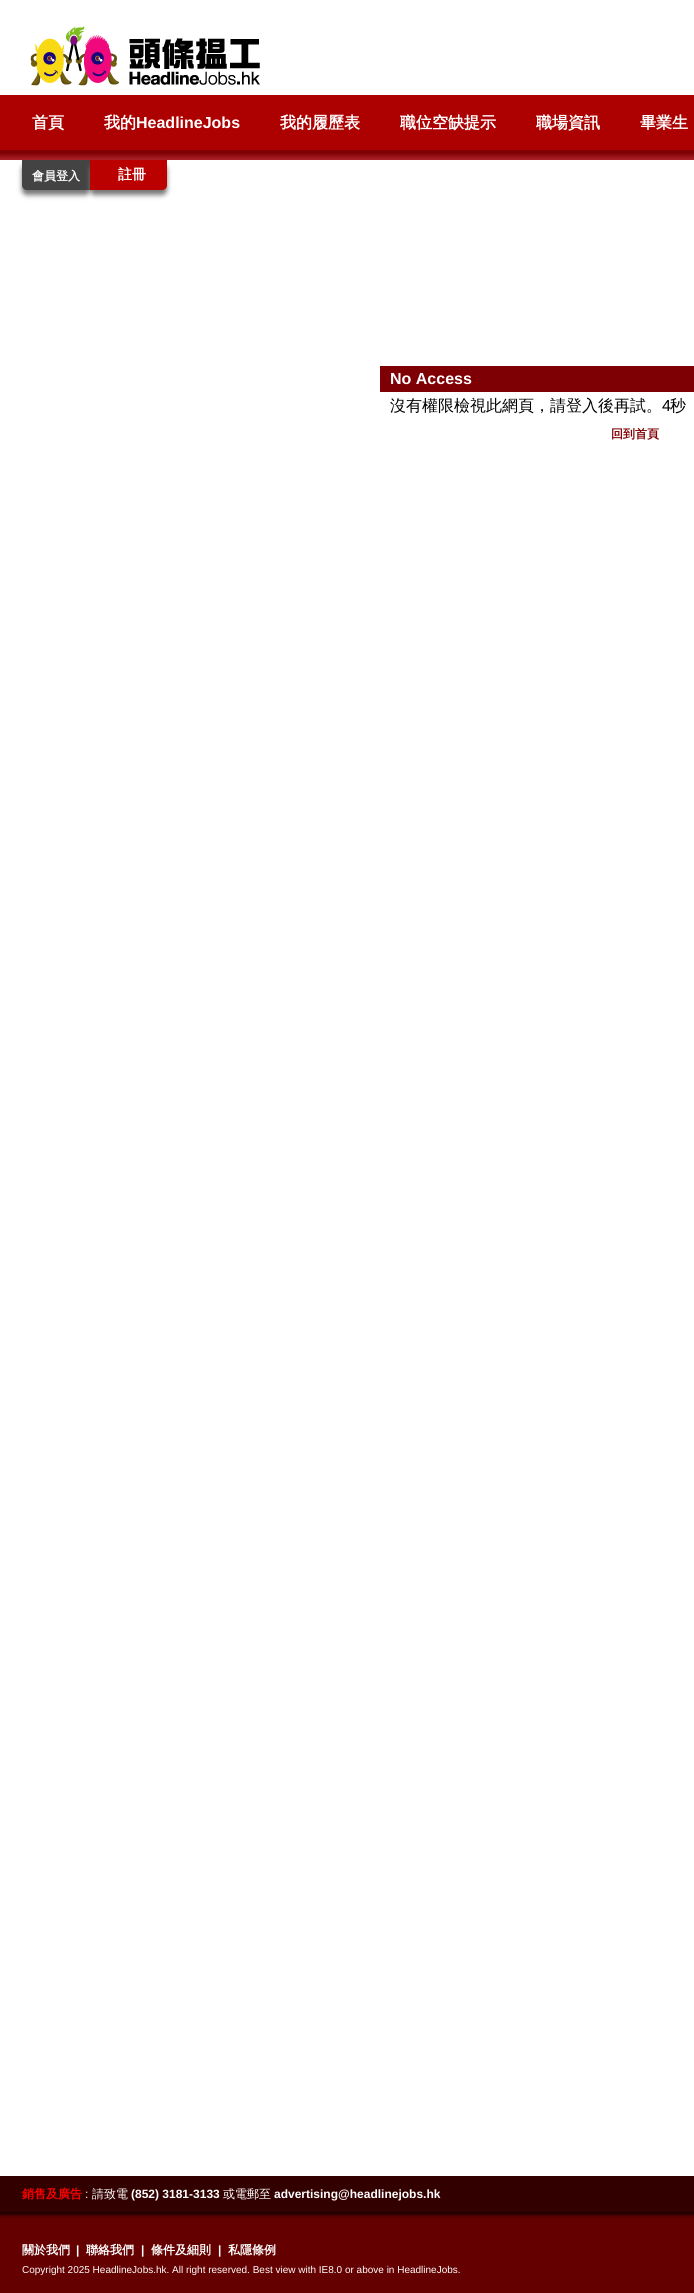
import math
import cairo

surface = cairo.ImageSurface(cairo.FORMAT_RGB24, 694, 2293)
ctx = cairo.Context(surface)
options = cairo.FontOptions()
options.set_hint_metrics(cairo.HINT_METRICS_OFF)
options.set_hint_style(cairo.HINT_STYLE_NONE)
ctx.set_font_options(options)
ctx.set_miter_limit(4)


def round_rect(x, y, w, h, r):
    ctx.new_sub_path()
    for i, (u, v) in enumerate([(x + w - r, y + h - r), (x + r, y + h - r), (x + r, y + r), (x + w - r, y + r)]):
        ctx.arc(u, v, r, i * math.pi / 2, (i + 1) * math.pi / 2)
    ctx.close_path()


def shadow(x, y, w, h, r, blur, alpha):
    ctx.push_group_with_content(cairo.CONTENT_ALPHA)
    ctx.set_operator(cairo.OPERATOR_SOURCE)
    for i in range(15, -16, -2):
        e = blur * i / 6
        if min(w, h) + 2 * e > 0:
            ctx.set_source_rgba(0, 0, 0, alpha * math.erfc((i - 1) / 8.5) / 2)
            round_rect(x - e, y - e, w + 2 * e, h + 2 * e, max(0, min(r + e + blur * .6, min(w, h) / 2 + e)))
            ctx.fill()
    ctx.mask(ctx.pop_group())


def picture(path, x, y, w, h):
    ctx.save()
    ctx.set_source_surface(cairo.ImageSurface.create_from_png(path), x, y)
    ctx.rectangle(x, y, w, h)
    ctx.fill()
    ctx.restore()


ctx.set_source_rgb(1, 1, 1)
ctx.paint()
picture("img1.png", 30, 26, 230, 60)
ctx.set_source_rgb(0.678, 0, 0)
ctx.rectangle(0, 95, 694, 55)
ctx.fill()
ctx.select_font_face("WenQuanYi Zen Hei", cairo.FONT_SLANT_NORMAL, cairo.FONT_WEIGHT_BOLD)
ctx.set_font_size(16)
ctx.set_source_rgb(1, 1, 1)
ctx.move_to(32, 128)
ctx.show_text("首頁")
ctx.move_to(104, 128)
ctx.show_text("我的")
ctx.select_font_face("Liberation Sans", cairo.FONT_SLANT_NORMAL, cairo.FONT_WEIGHT_BOLD)
ctx.move_to(136, 128)
ctx.show_text("HeadlineJobs")
ctx.select_font_face("WenQuanYi Zen Hei", cairo.FONT_SLANT_NORMAL, cairo.FONT_WEIGHT_BOLD)
ctx.move_to(280, 128)
ctx.show_text("我的履歷表")
ctx.move_to(400, 128)
ctx.show_text("職位空缺提示")
ctx.move_to(536, 128)
ctx.show_text("職場資訊")
ctx.move_to(640, 128)
ctx.show_text("畢業生")
picture("img2.png", 0, 150, 694, 10)
ctx.set_source_rgb(0.467, 0.467, 0.467)
shadow(22, 165, 68, 30, 5, 2.5, 1)
ctx.set_source_rgb(0.263, 0.263, 0.263)
ctx.new_path()
ctx.move_to(22, 160)
ctx.line_to(90, 160)
ctx.line_to(90, 190)
ctx.line_to(27, 190)
ctx.curve_to(24, 190, 22, 188, 22, 185)
ctx.close_path()
ctx.fill()
ctx.set_font_size(12)
ctx.set_source_rgb(1, 1, 1)
ctx.move_to(32, 180)
ctx.show_text("會員登入")
ctx.set_source_rgb(0.467, 0.467, 0.467)
shadow(90, 165, 77, 30, 5, 2.5, 1)
ctx.set_source_rgb(0.733, 0, 0)
ctx.new_path()
ctx.move_to(90, 160)
ctx.line_to(167, 160)
ctx.line_to(167, 185)
ctx.curve_to(167, 188, 165, 190, 162, 190)
ctx.line_to(90, 190)
ctx.close_path()
ctx.fill()
ctx.set_font_size(14)
ctx.set_source_rgb(1, 1, 1)
ctx.move_to(118, 179)
ctx.show_text("註冊")
ctx.set_source_rgb(0.498, 0, 0.016)
ctx.rectangle(380, 366, 314, 26)
ctx.fill()
ctx.select_font_face("Liberation Sans", cairo.FONT_SLANT_NORMAL, cairo.FONT_WEIGHT_BOLD)
ctx.set_font_size(16)
ctx.set_source_rgb(1, 1, 1)
ctx.move_to(390, 384)
ctx.show_text("No Access")
ctx.select_font_face("WenQuanYi Zen Hei Medium")
ctx.set_source_rgb(0, 0, 0)
ctx.move_to(390, 411)
ctx.show_text("沒有權限檢視此網頁，請登入後再試。")
ctx.select_font_face("Liberation Sans")
ctx.move_to(662, 411)
ctx.show_text("4")
ctx.select_font_face("WenQuanYi Zen Hei Medium")
ctx.move_to(670, 411)
ctx.show_text("秒")
ctx.select_font_face("WenQuanYi Zen Hei", cairo.FONT_SLANT_NORMAL, cairo.FONT_WEIGHT_BOLD)
ctx.set_font_size(12)
ctx.set_source_rgb(0.498, 0, 0.016)
ctx.move_to(611, 438)
ctx.show_text("回到首頁")
picture("img3.png", 0, 2176, 694, 117)
ctx.set_source_rgb(1, 0, 0)
ctx.move_to(22, 2198)
ctx.show_text("銷售及廣告")
ctx.select_font_face("Liberation Sans")
ctx.set_source_rgb(1, 1, 1)
ctx.move_to(85, 2198)
ctx.show_text(":")
ctx.select_font_face("WenQuanYi Zen Hei Medium")
ctx.move_to(92, 2198)
ctx.show_text("請致電")
ctx.select_font_face("Liberation Sans", cairo.FONT_SLANT_NORMAL, cairo.FONT_WEIGHT_BOLD)
ctx.move_to(131, 2198)
ctx.show_text("(852) 3181-3133")
ctx.select_font_face("WenQuanYi Zen Hei Medium")
ctx.move_to(223, 2198)
ctx.show_text("或電郵至")
ctx.select_font_face("Liberation Sans", cairo.FONT_SLANT_NORMAL, cairo.FONT_WEIGHT_BOLD)
ctx.move_to(274, 2198)
ctx.show_text("advertising@headlinejobs.hk")
ctx.select_font_face("WenQuanYi Zen Hei", cairo.FONT_SLANT_NORMAL, cairo.FONT_WEIGHT_BOLD)
ctx.move_to(22, 2254)
ctx.show_text("關於我們")
ctx.select_font_face("Liberation Sans", cairo.FONT_SLANT_NORMAL, cairo.FONT_WEIGHT_BOLD)
ctx.move_to(76, 2254)
ctx.show_text("|")
ctx.select_font_face("WenQuanYi Zen Hei", cairo.FONT_SLANT_NORMAL, cairo.FONT_WEIGHT_BOLD)
ctx.move_to(86, 2254)
ctx.show_text("聯絡我們")
ctx.select_font_face("Liberation Sans", cairo.FONT_SLANT_NORMAL, cairo.FONT_WEIGHT_BOLD)
ctx.move_to(141, 2254)
ctx.show_text("|")
ctx.select_font_face("WenQuanYi Zen Hei", cairo.FONT_SLANT_NORMAL, cairo.FONT_WEIGHT_BOLD)
ctx.move_to(151, 2254)
ctx.show_text("條件及細則")
ctx.select_font_face("Liberation Sans", cairo.FONT_SLANT_NORMAL, cairo.FONT_WEIGHT_BOLD)
ctx.move_to(218, 2254)
ctx.show_text("|")
ctx.select_font_face("WenQuanYi Zen Hei", cairo.FONT_SLANT_NORMAL, cairo.FONT_WEIGHT_BOLD)
ctx.move_to(228, 2254)
ctx.show_text("私隱條例")
ctx.select_font_face("Liberation Sans")
ctx.set_font_size(10)
ctx.move_to(22, 2273)
ctx.show_text("Copyright 2025 HeadlineJobs.hk. All right reserved. Best view with IE8.0 or above in HeadlineJobs.")
surface.write_to_png("page.png")
